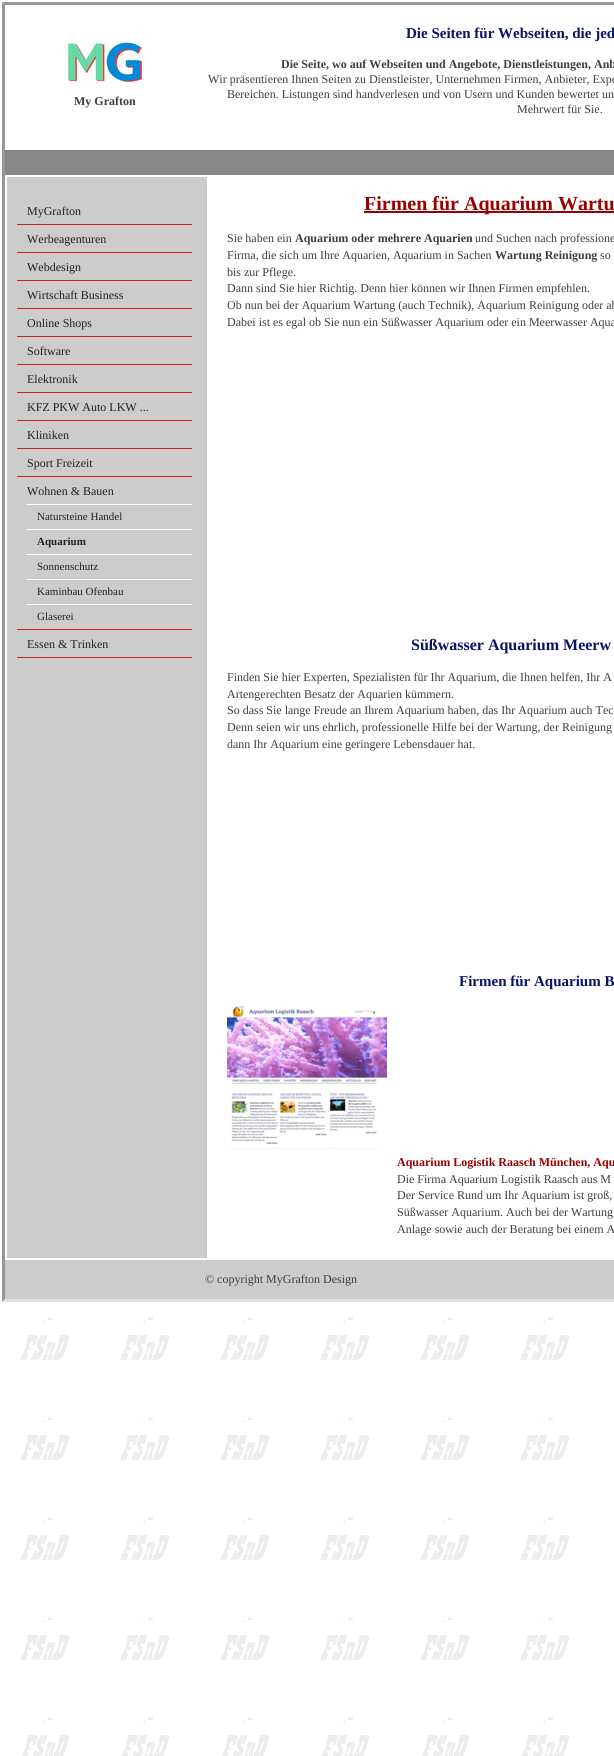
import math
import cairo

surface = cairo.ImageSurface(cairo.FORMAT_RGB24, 614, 1756)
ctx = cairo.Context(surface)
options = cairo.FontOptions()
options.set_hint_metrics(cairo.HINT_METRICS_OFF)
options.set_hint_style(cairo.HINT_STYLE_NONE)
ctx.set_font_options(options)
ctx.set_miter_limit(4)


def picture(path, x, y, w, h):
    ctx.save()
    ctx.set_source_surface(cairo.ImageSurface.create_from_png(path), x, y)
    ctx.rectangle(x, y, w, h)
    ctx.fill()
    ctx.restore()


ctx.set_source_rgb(1, 1, 1)
ctx.paint()
picture("img1.png", 20, 1302, 549, 454)
ctx.set_source_rgb(0.592, 0.592, 0.592)
ctx.new_path()
ctx.move_to(2, 2)
ctx.line_to(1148, 2)
ctx.line_to(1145, 5)
ctx.line_to(5, 5)
ctx.close_path()
ctx.fill()
ctx.set_source_rgb(0.89, 0.89, 0.89)
ctx.new_path()
ctx.move_to(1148, 1302)
ctx.line_to(2, 1302)
ctx.line_to(5, 1299)
ctx.line_to(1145, 1299)
ctx.close_path()
ctx.fill()
ctx.set_source_rgb(0.592, 0.592, 0.592)
ctx.new_path()
ctx.move_to(2, 1302)
ctx.line_to(2, 2)
ctx.line_to(5, 5)
ctx.line_to(5, 1299)
ctx.close_path()
ctx.fill()
picture("img2.png", 68, 41, 75, 42)
ctx.select_font_face("Liberation Serif", cairo.FONT_SLANT_NORMAL, cairo.FONT_WEIGHT_BOLD)
ctx.set_font_size(12)
ctx.set_source_rgb(0.243, 0.243, 0.243)
ctx.move_to(74, 105)
ctx.show_text("My Grafton")
ctx.set_font_size(15)
ctx.set_source_rgb(0.035, 0.078, 0.404)
ctx.move_to(406, 38)
ctx.show_text("Die Seiten für Webseiten, die jed")
ctx.set_font_size(12)
ctx.set_source_rgb(0.243, 0.243, 0.243)
ctx.move_to(281, 68)
ctx.show_text("Die Seite, wo auf Webseiten und Angebote, Dienstleistungen, Anb")
ctx.select_font_face("Liberation Serif")
ctx.move_to(208, 83)
ctx.show_text("Wir präsentieren Ihnen Seiten zu Dienstleister, Unternehmen Firmen, Anbieter, Expe")
ctx.move_to(227, 98)
ctx.show_text("Bereichen. Listungen sind handverlesen und von Usern und Kunden bewertet un")
ctx.move_to(517, 113)
ctx.show_text("Mehrwert für Sie.")
ctx.set_source_rgb(0.533, 0.533, 0.533)
ctx.rectangle(5, 150, 609, 25)
ctx.fill()
ctx.set_source_rgb(0.8, 0.8, 0.8)
ctx.rectangle(7, 177, 200, 1081)
ctx.fill()
ctx.set_source_rgb(0.8, 0.133, 0.133)
ctx.rectangle(17, 224, 175, 1)
ctx.fill()
ctx.set_source_rgb(0.125, 0.125, 0.125)
ctx.move_to(27, 215)
ctx.show_text("MyGrafton")
ctx.set_source_rgb(0.8, 0.133, 0.133)
ctx.rectangle(17, 252, 175, 1)
ctx.fill()
ctx.set_source_rgb(0.125, 0.125, 0.125)
ctx.move_to(27, 243)
ctx.show_text("Werbeagenturen")
ctx.set_source_rgb(0.8, 0.133, 0.133)
ctx.rectangle(17, 280, 175, 1)
ctx.fill()
ctx.set_source_rgb(0.125, 0.125, 0.125)
ctx.move_to(27, 271)
ctx.show_text("Webdesign")
ctx.set_source_rgb(0.8, 0.133, 0.133)
ctx.rectangle(17, 308, 175, 1)
ctx.fill()
ctx.set_source_rgb(0.125, 0.125, 0.125)
ctx.move_to(27, 299)
ctx.show_text("Wirtschaft Business")
ctx.set_source_rgb(0.8, 0.133, 0.133)
ctx.rectangle(17, 336, 175, 1)
ctx.fill()
ctx.set_source_rgb(0.125, 0.125, 0.125)
ctx.move_to(27, 327)
ctx.show_text("Online Shops")
ctx.set_source_rgb(0.8, 0.133, 0.133)
ctx.rectangle(17, 364, 175, 1)
ctx.fill()
ctx.set_source_rgb(0.125, 0.125, 0.125)
ctx.move_to(27, 355)
ctx.show_text("Software")
ctx.set_source_rgb(0.8, 0.133, 0.133)
ctx.rectangle(17, 392, 175, 1)
ctx.fill()
ctx.set_source_rgb(0.125, 0.125, 0.125)
ctx.move_to(27, 383)
ctx.show_text("Elektronik")
ctx.set_source_rgb(0.8, 0.133, 0.133)
ctx.rectangle(17, 420, 175, 1)
ctx.fill()
ctx.set_source_rgb(0.125, 0.125, 0.125)
ctx.move_to(27, 411)
ctx.show_text("KFZ PKW Auto LKW ...")
ctx.set_source_rgb(0.8, 0.133, 0.133)
ctx.rectangle(17, 448, 175, 1)
ctx.fill()
ctx.set_source_rgb(0.125, 0.125, 0.125)
ctx.move_to(27, 439)
ctx.show_text("Kliniken")
ctx.set_source_rgb(0.8, 0.133, 0.133)
ctx.rectangle(17, 476, 175, 1)
ctx.fill()
ctx.set_source_rgb(0.125, 0.125, 0.125)
ctx.move_to(27, 467)
ctx.show_text("Sport Freizeit")
ctx.set_source_rgb(0.8, 0.133, 0.133)
ctx.rectangle(17, 629, 175, 1)
ctx.fill()
ctx.set_source_rgb(0.125, 0.125, 0.125)
ctx.move_to(27, 495)
ctx.show_text("Wohnen & Bauen")
ctx.set_source_rgb(1, 1, 1)
ctx.rectangle(27, 504, 165, 1)
ctx.fill()
ctx.set_font_size(11)
ctx.set_source_rgb(0.125, 0.125, 0.125)
ctx.move_to(37, 520)
ctx.show_text("Natursteine Handel")
ctx.set_source_rgb(1, 1, 1)
ctx.rectangle(27, 529, 165, 1)
ctx.fill()
ctx.select_font_face("Liberation Serif", cairo.FONT_SLANT_NORMAL, cairo.FONT_WEIGHT_BOLD)
ctx.set_source_rgb(0.125, 0.125, 0.125)
ctx.move_to(37, 545)
ctx.show_text("Aquarium")
ctx.set_source_rgb(1, 1, 1)
ctx.rectangle(27, 554, 165, 1)
ctx.fill()
ctx.select_font_face("Liberation Serif")
ctx.set_source_rgb(0.125, 0.125, 0.125)
ctx.move_to(37, 570)
ctx.show_text("Sonnenschutz")
ctx.set_source_rgb(1, 1, 1)
ctx.rectangle(27, 579, 165, 1)
ctx.fill()
ctx.set_source_rgb(0.125, 0.125, 0.125)
ctx.move_to(37, 595)
ctx.show_text("Kaminbau Ofenbau")
ctx.set_source_rgb(1, 1, 1)
ctx.rectangle(27, 604, 165, 1)
ctx.fill()
ctx.set_source_rgb(0.125, 0.125, 0.125)
ctx.move_to(37, 620)
ctx.show_text("Glaserei")
ctx.set_source_rgb(0.8, 0.133, 0.133)
ctx.rectangle(17, 657, 175, 1)
ctx.fill()
ctx.set_font_size(12)
ctx.set_source_rgb(0.125, 0.125, 0.125)
ctx.move_to(27, 648)
ctx.show_text("Essen & Trinken")
ctx.set_source_rgb(0.6, 0, 0)
ctx.rectangle(364, 211, 250, 2)
ctx.fill()
ctx.select_font_face("Liberation Serif", cairo.FONT_SLANT_NORMAL, cairo.FONT_WEIGHT_BOLD)
ctx.set_font_size(20)
ctx.move_to(364, 210)
ctx.show_text("Firmen für Aquarium Wartu")
ctx.select_font_face("Liberation Serif")
ctx.set_font_size(12)
ctx.set_source_rgb(0.243, 0.243, 0.243)
ctx.move_to(227, 242)
ctx.show_text("Sie haben ein")
ctx.select_font_face("Liberation Serif", cairo.FONT_SLANT_NORMAL, cairo.FONT_WEIGHT_BOLD)
ctx.move_to(295, 242)
ctx.show_text("Aquarium oder mehrere Aquarien")
ctx.select_font_face("Liberation Serif")
ctx.move_to(475, 242)
ctx.show_text("und Suchen nach professione")
ctx.move_to(227, 259)
ctx.show_text("Firma, die sich um Ihre Aquarien, Aquarium in Sachen")
ctx.select_font_face("Liberation Serif", cairo.FONT_SLANT_NORMAL, cairo.FONT_WEIGHT_BOLD)
ctx.move_to(495, 259)
ctx.show_text("Wartung Reinigung")
ctx.select_font_face("Liberation Serif")
ctx.move_to(600, 259)
ctx.show_text("so")
ctx.move_to(227, 276)
ctx.show_text("bis zur Pflege.")
ctx.move_to(227, 292)
ctx.show_text("Dann sind Sie hier Richtig. Denn hier können wir Ihnen Firmen empfehlen.")
ctx.move_to(227, 309)
ctx.show_text("Ob nun bei der Aquarium Wartung (auch Technik), Aquarium Reinigung oder ab")
ctx.move_to(227, 326)
ctx.show_text("Dabei ist es egal ob Sie nun ein Süßwasser Aquarium oder ein Meerwasser Aqua")
ctx.select_font_face("Liberation Serif", cairo.FONT_SLANT_NORMAL, cairo.FONT_WEIGHT_BOLD)
ctx.set_font_size(16)
ctx.set_source_rgb(0.035, 0.078, 0.404)
ctx.move_to(411, 650)
ctx.show_text("Süßwasser Aquarium Meerw")
ctx.select_font_face("Liberation Serif")
ctx.set_font_size(12)
ctx.set_source_rgb(0.243, 0.243, 0.243)
ctx.move_to(227, 681)
ctx.show_text("Finden Sie hier Experten, Spezialisten für Ihr Aquarium, die Ihnen helfen, Ihr A")
ctx.move_to(227, 698)
ctx.show_text("Artengerechten Besatz der Aquarien kümmern.")
ctx.move_to(227, 714)
ctx.show_text("So dass Sie lange Freude an Ihrem Aquarium haben, das Ihr Aquarium auch Tec")
ctx.move_to(227, 731)
ctx.show_text("Denn seien wir uns ehrlich, professionelle Hilfe bei der Wartung, der Reinigung")
ctx.move_to(227, 748)
ctx.show_text("dann Ihr Aquarium eine geringere Lebensdauer hat.")
ctx.select_font_face("Liberation Serif", cairo.FONT_SLANT_NORMAL, cairo.FONT_WEIGHT_BOLD)
ctx.set_font_size(15)
ctx.set_source_rgb(0.035, 0.078, 0.404)
ctx.move_to(459, 986)
ctx.show_text("Firmen für Aquarium B")
picture("img3.png", 227, 1005, 160, 144)
ctx.set_font_size(12)
ctx.set_source_rgb(0.6, 0, 0)
ctx.move_to(397, 1166)
ctx.show_text("Aquarium Logistik Raasch München, Aqu")
ctx.select_font_face("Liberation Serif")
ctx.set_source_rgb(0.243, 0.243, 0.243)
ctx.move_to(397, 1183)
ctx.show_text("Die Firma Aquarium Logistik Raasch aus M")
ctx.move_to(397, 1199)
ctx.show_text("Der Service Rund um Ihr Aquarium ist groß,")
ctx.move_to(397, 1216)
ctx.show_text("Süßwasser Aquarium. Auch bei der Wartung")
ctx.move_to(397, 1233)
ctx.show_text("Anlage sowie auch der Beratung bei einem A")
ctx.set_source_rgb(0.8, 0.8, 0.8)
ctx.rectangle(5, 1260, 609, 39)
ctx.fill()
ctx.set_source_rgb(0.243, 0.243, 0.243)
ctx.move_to(205, 1283)
ctx.show_text("© copyright MyGrafton Design")
surface.write_to_png("page.png")
